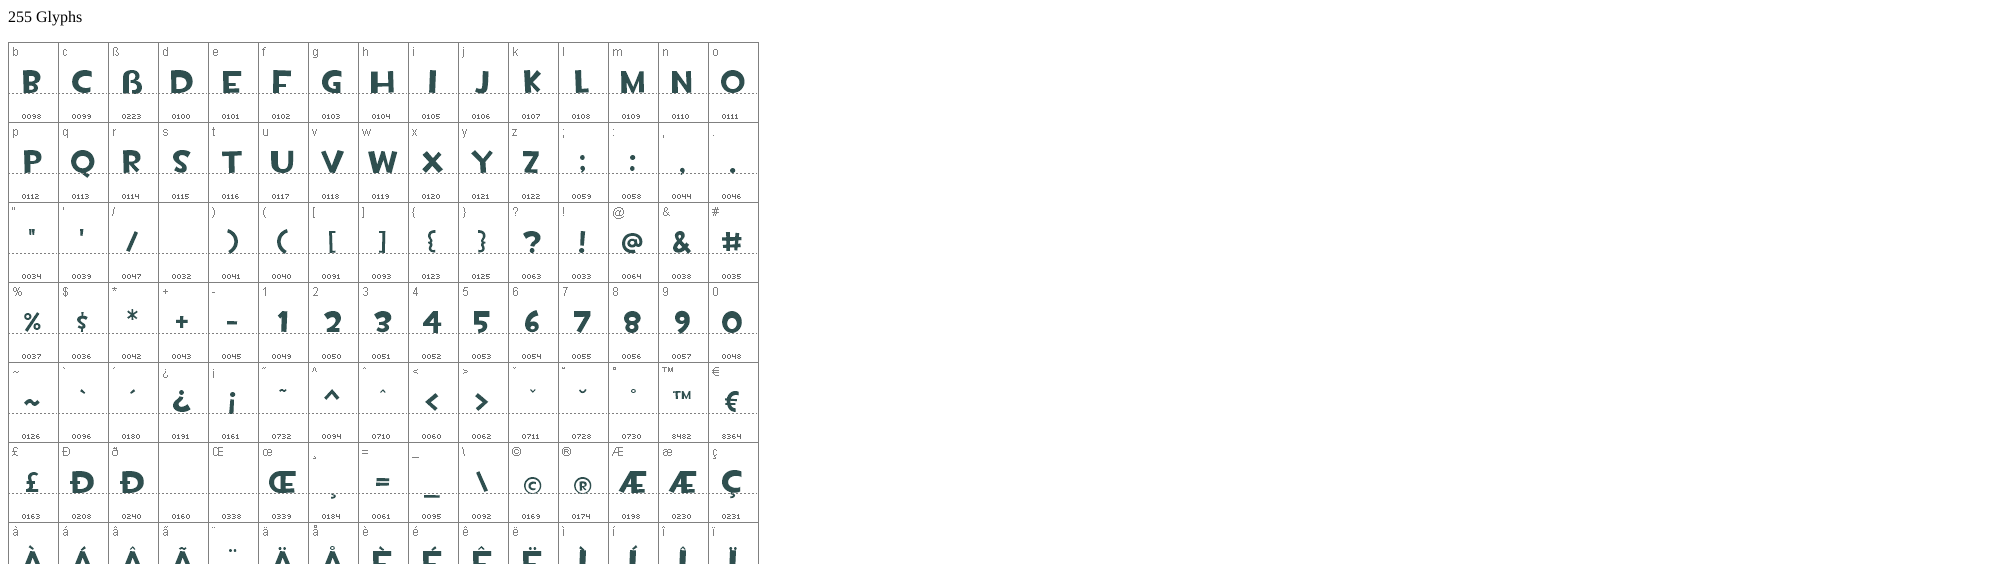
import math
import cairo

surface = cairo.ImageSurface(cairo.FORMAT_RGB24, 2009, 564)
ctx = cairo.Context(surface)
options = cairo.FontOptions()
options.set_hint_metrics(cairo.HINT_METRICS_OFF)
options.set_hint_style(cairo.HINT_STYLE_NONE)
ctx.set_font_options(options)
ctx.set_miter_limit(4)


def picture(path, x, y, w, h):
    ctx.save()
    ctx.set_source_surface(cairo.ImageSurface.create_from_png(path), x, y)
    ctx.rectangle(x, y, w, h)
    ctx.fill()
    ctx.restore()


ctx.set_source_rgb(1, 1, 1)
ctx.paint()
ctx.select_font_face("Liberation Serif")
ctx.set_font_size(16)
ctx.set_source_rgb(0, 0, 0)
ctx.move_to(8, 22)
ctx.show_text("255 Glyphs")
picture("img1.png", 8, 42, 751, 522)
surface.write_to_png("page.png")
